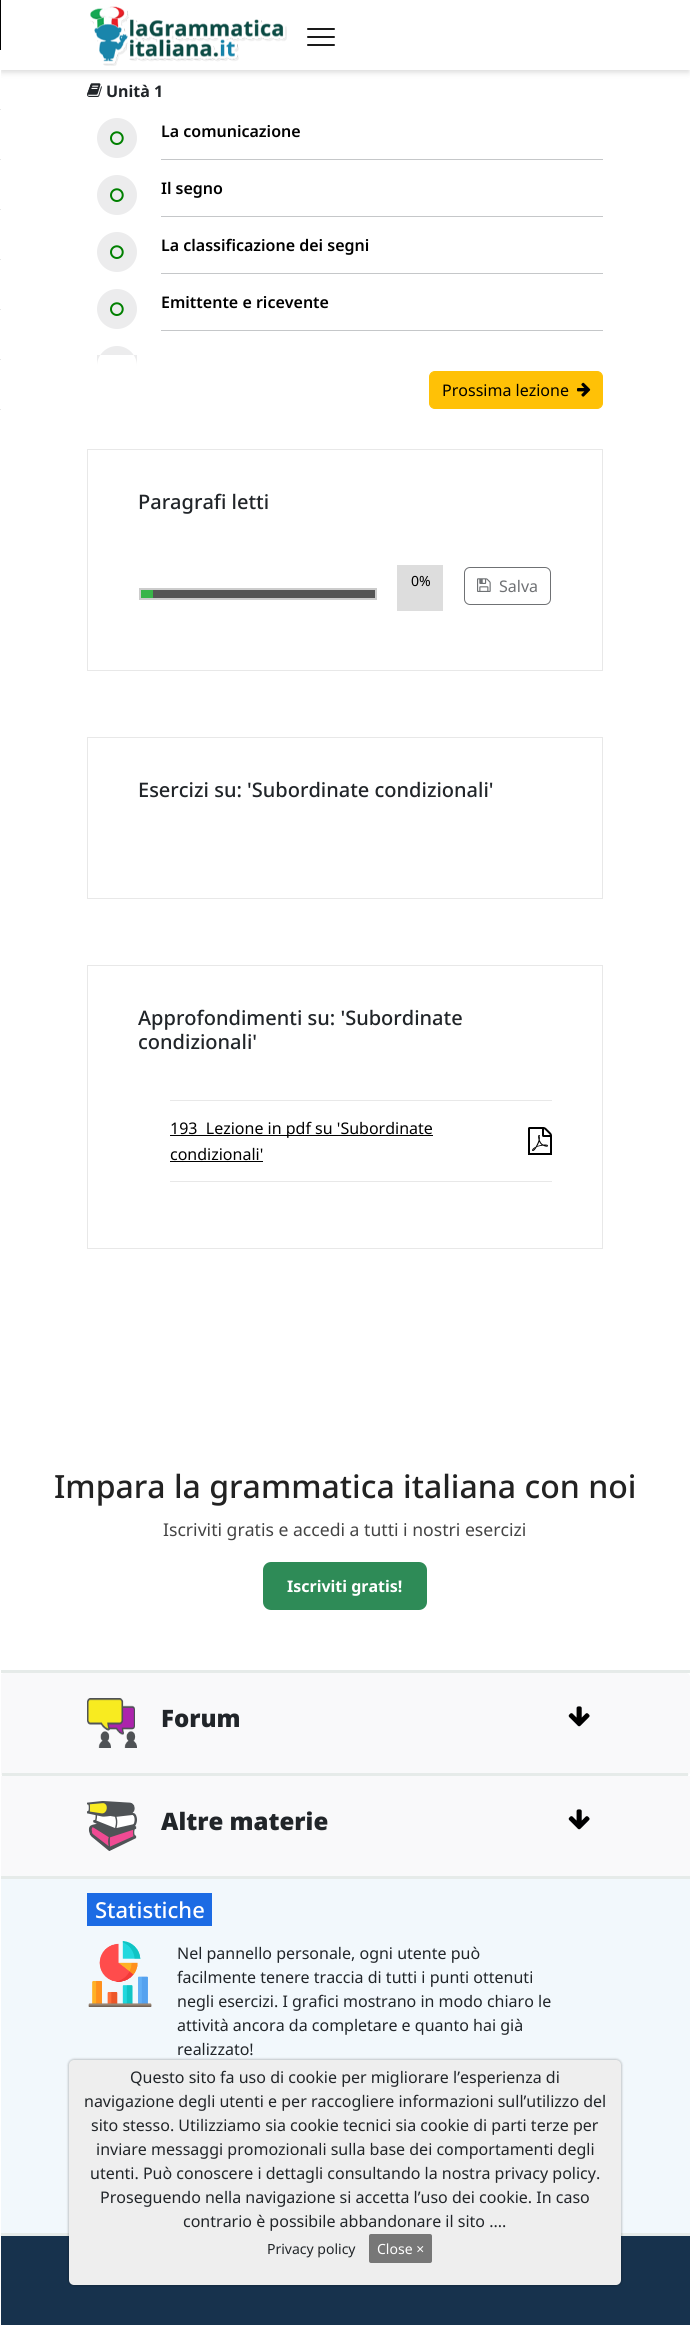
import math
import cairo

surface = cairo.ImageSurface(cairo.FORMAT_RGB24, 690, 2325)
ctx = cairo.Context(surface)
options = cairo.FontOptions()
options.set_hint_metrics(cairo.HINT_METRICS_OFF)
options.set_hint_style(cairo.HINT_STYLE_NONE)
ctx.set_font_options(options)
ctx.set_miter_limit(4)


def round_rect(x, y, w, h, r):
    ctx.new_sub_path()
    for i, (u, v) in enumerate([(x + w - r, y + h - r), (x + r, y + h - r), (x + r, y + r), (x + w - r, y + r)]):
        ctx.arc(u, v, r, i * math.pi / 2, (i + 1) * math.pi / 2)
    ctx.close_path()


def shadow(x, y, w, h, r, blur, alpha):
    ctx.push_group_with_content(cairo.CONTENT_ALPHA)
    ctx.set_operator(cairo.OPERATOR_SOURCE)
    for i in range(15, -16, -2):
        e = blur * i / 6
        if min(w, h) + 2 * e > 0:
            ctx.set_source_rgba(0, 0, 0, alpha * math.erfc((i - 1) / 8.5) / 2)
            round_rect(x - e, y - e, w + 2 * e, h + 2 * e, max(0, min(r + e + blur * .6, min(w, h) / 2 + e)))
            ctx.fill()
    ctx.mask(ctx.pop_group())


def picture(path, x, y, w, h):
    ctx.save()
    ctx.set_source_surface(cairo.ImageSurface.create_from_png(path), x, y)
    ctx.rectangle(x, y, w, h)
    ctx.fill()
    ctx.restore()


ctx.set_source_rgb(1, 1, 1)
ctx.paint()
ctx.set_source_rgb(0, 0, 0)
shadow(1, 3, 688, 68, 0, 2, 0.06)
shadow(1, 5, 688, 68, 0, 3, 0.1)
ctx.set_source_rgb(1, 1, 1)
ctx.rectangle(1, 0, 689, 70)
ctx.fill()
ctx.set_source_rgb(0.902, 0.918, 0.914)
ctx.rectangle(0, 1670, 690, 3)
ctx.fill()
ctx.set_source_rgb(0.973, 0.976, 0.98)
round_rect(0, 1673, 690, 103, 4)
ctx.fill()
ctx.set_source_rgb(0.902, 0.918, 0.914)
ctx.rectangle(0, 1876, 690, 3)
ctx.fill()
ctx.rectangle(0, 2233, 690, 3)
ctx.fill()
ctx.set_source_rgb(1, 1, 1)
ctx.rectangle(0, 50, 1, 2186)
ctx.fill()
ctx.set_source_rgb(0, 0, 0)
ctx.rectangle(0, 0, 1, 50)
ctx.fill()
ctx.set_source_rgb(0.902, 0.902, 0.902)
ctx.rectangle(0, 109, 1, 1)
ctx.fill()
ctx.rectangle(0, 159, 1, 1)
ctx.fill()
ctx.rectangle(0, 209, 1, 1)
ctx.fill()
ctx.rectangle(0, 259, 1, 1)
ctx.fill()
ctx.rectangle(0, 309, 1, 1)
ctx.fill()
ctx.rectangle(0, 359, 1, 1)
ctx.fill()
ctx.rectangle(0, 409, 1, 1)
ctx.fill()
picture("img1.png", 90, 6, 197, 60)
ctx.set_source_rgb(0.102, 0.102, 0.102)
round_rect(307, 28, 28, 2, 1)
ctx.fill()
round_rect(307, 36, 28, 2, 1)
ctx.fill()
round_rect(307, 44, 28, 2, 1)
ctx.fill()
picture("img2.png", 87, 83, 15, 14)
ctx.select_font_face("Noto Sans", cairo.FONT_SLANT_NORMAL, cairo.FONT_WEIGHT_BOLD)
ctx.set_font_size(16)
ctx.set_source_rgb(0.129, 0.145, 0.161)
ctx.move_to(106, 97)
ctx.show_text("Unità 1")
ctx.set_source_rgb(0.922, 0.925, 0.929)
ctx.new_path()
ctx.arc(117, 138, 20, 0, 2 * math.pi)
ctx.fill()
picture("img3.png", 110, 131, 14, 14)
ctx.set_source_rgb(0.773, 0.78, 0.788)
ctx.rectangle(161, 159, 442, 1)
ctx.fill()
ctx.select_font_face("Noto Sans SemiBold")
ctx.set_source_rgb(0, 0, 0)
ctx.move_to(161, 137)
ctx.show_text("La comunicazione")
ctx.set_source_rgb(0.922, 0.925, 0.929)
ctx.new_path()
ctx.arc(117, 195, 20, 0, 2 * math.pi)
ctx.fill()
picture("img3.png", 110, 188, 14, 14)
ctx.set_source_rgb(0.773, 0.78, 0.788)
ctx.rectangle(161, 216, 442, 1)
ctx.fill()
ctx.set_source_rgb(0, 0, 0)
ctx.move_to(161, 194)
ctx.show_text("Il segno")
ctx.set_source_rgb(0.922, 0.925, 0.929)
ctx.new_path()
ctx.arc(117, 252, 20, 0, 2 * math.pi)
ctx.fill()
picture("img3.png", 110, 245, 14, 14)
ctx.set_source_rgb(0.773, 0.78, 0.788)
ctx.rectangle(161, 273, 442, 1)
ctx.fill()
ctx.set_source_rgb(0, 0, 0)
ctx.move_to(161, 251)
ctx.show_text("La classificazione dei segni")
ctx.set_source_rgb(0.922, 0.925, 0.929)
ctx.new_path()
ctx.arc(117, 309, 20, 0, 2 * math.pi)
ctx.fill()
picture("img3.png", 110, 302, 14, 14)
ctx.set_source_rgb(0.773, 0.78, 0.788)
ctx.rectangle(161, 330, 442, 1)
ctx.fill()
ctx.set_source_rgb(0, 0, 0)
ctx.move_to(161, 308)
ctx.show_text("Emittente e ricevente")
ctx.set_source_rgb(0.922, 0.925, 0.929)
ctx.new_path()
ctx.move_to(117, 346)
ctx.curve_to(128, 346, 137, 355, 137, 366)
ctx.line_to(137, 355)
ctx.line_to(97, 355)
ctx.line_to(97, 366)
ctx.curve_to(97, 355, 106, 346, 117, 346)
ctx.close_path()
ctx.fill()
ctx.set_source_rgb(1, 0.757, 0.027)
round_rect(429.5, 371.5, 173, 37, 5.5)
ctx.fill_preserve()
ctx.set_line_width(1)
ctx.stroke()
ctx.select_font_face("Noto Sans")
ctx.set_source_rgb(0, 0, 0)
ctx.move_to(442, 396)
ctx.show_text("Prossima lezione")
picture("img4.png", 577, 382, 14, 15)
ctx.rectangle(87.5, 449.5, 515, 221)
ctx.set_source_rgb(0.91, 0.91, 0.91)
ctx.stroke()
ctx.select_font_face("Noto Sans Medium")
ctx.set_font_size(20)
ctx.set_source_rgb(0.129, 0.145, 0.161)
ctx.move_to(138, 509)
ctx.show_text("Paragrafi letti")
ctx.set_source_rgb(0.333, 0.333, 0.333)
ctx.rectangle(153, 590, 222, 8)
ctx.fill()
ctx.rectangle(140, 589, 236, 10)
ctx.set_source_rgb(0.8, 0.8, 0.8)
ctx.set_line_width(2)
ctx.stroke()
ctx.set_source_rgb(0.224, 0.71, 0.29)
ctx.rectangle(141, 590, 12, 8)
ctx.fill()
ctx.set_source_rgb(0.867, 0.867, 0.867)
ctx.rectangle(397, 565, 46, 46)
ctx.fill()
ctx.select_font_face("Noto Sans")
ctx.set_font_size(14)
ctx.set_source_rgb(0, 0, 0)
ctx.move_to(411, 586)
ctx.show_text("0%")
round_rect(464.5, 567.5, 86, 37, 5.5)
ctx.set_source_rgb(0.435, 0.443, 0.455)
ctx.set_line_width(1)
ctx.stroke()
picture("img5.png", 477, 578, 14, 14)
ctx.set_font_size(16)
ctx.move_to(499, 592)
ctx.show_text("Salva")
ctx.rectangle(87.5, 737.5, 515, 161)
ctx.set_source_rgb(0.91, 0.91, 0.91)
ctx.stroke()
ctx.select_font_face("Noto Sans Medium")
ctx.set_font_size(20)
ctx.set_source_rgb(0.129, 0.145, 0.161)
ctx.move_to(138, 797)
ctx.show_text("Esercizi su: 'Subordinate condizionali'")
ctx.rectangle(87.5, 965.5, 515, 283)
ctx.set_source_rgb(0.91, 0.91, 0.91)
ctx.stroke()
ctx.set_source_rgb(0.129, 0.145, 0.161)
ctx.move_to(138, 1025)
ctx.show_text("Approfondimenti su: 'Subordinate")
ctx.move_to(138, 1049)
ctx.show_text("condizionali'")
ctx.set_source_rgb(0.91, 0.91, 0.91)
ctx.rectangle(170, 1100, 382, 1)
ctx.fill()
ctx.rectangle(170, 1181, 382, 1)
ctx.fill()
ctx.set_source_rgb(0, 0, 0)
ctx.rectangle(170, 1135, 263, 1)
ctx.fill()
ctx.select_font_face("Noto Sans")
ctx.set_font_size(16)
ctx.move_to(170, 1134)
ctx.show_text("193  Lezione in pdf su 'Subordinate")
ctx.move_to(170, 1160)
ctx.show_text("condizionali'")
ctx.rectangle(170, 1161, 93, 1)
ctx.fill()
picture("img6.png", 528, 1127, 24, 27)
ctx.rectangle(528, 1154, 24, 1)
ctx.fill()
ctx.select_font_face("Noto Sans Medium")
ctx.set_font_size(32)
ctx.set_source_rgb(0.133, 0.133, 0.133)
ctx.move_to(54, 1498)
ctx.show_text("Impara la grammatica italiana con noi")
ctx.select_font_face("Noto Sans")
ctx.set_font_size(17.6)
ctx.set_source_rgb(0.267, 0.267, 0.267)
ctx.move_to(163, 1536)
ctx.show_text("Iscriviti gratis e accedi a tutti i nostri esercizi")
ctx.set_source_rgb(0.18, 0.545, 0.341)
round_rect(263, 1562, 164, 48, 8)
ctx.fill()
ctx.select_font_face("Noto Sans", cairo.FONT_SLANT_NORMAL, cairo.FONT_WEIGHT_BOLD)
ctx.set_font_size(16)
ctx.set_source_rgb(1, 1, 1)
ctx.move_to(287, 1592)
ctx.show_text("Iscriviti gratis!")
ctx.set_source_rgb(0.902, 0.918, 0.914)
ctx.rectangle(2, 1773, 686, 3)
ctx.fill()
picture("img7.png", 87, 1698, 50, 50)
ctx.select_font_face("Noto Sans Black")
ctx.set_font_size(24)
ctx.set_source_rgb(0.129, 0.145, 0.161)
ctx.move_to(161, 1727)
ctx.show_text("Forum")
picture("img8.png", 568, 1706, 22, 21)
ctx.set_source_rgb(0.973, 0.976, 0.98)
ctx.rectangle(1, 1776, 689, 100)
ctx.fill()
picture("img9.png", 87, 1801, 50, 50)
ctx.set_source_rgb(0.129, 0.145, 0.161)
ctx.move_to(161, 1830)
ctx.show_text("Altre materie")
picture("img8.png", 568, 1809, 22, 21)
ctx.set_source_rgb(0.949, 0.969, 0.988)
ctx.rectangle(1, 1879, 689, 354)
ctx.fill()
ctx.set_source_rgb(0.11, 0.42, 0.894)
ctx.rectangle(87, 1893, 125, 33)
ctx.fill()
ctx.select_font_face("Noto Sans Medium")
ctx.set_font_size(22)
ctx.set_source_rgb(1, 1, 1)
ctx.move_to(95, 1918)
ctx.show_text("Statistiche")
picture("img10.png", 88, 1941, 64, 66)
ctx.select_font_face("Noto Sans")
ctx.set_font_size(16)
ctx.set_source_rgb(0.129, 0.145, 0.161)
ctx.move_to(177, 1959)
ctx.show_text("Nel pannello personale, ogni utente può")
ctx.move_to(177, 1983)
ctx.show_text("facilmente tenere traccia di tutti i punti ottenuti")
ctx.move_to(177, 2007)
ctx.show_text("negli esercizi. I grafici mostrano in modo chiaro le")
ctx.move_to(177, 2031)
ctx.show_text("attività ancora da completare e quanto hai già")
ctx.move_to(177, 2055)
ctx.show_text("realizzato!")
ctx.set_source_rgb(0.09, 0.196, 0.302)
ctx.rectangle(1, 2236, 689, 89)
ctx.fill()
ctx.set_source_rgb(0, 0, 0)
shadow(68, 2059, 554, 227, 6, 1, 0.2)
ctx.set_source_rgb(0.933, 0.933, 0.933)
round_rect(69, 2060, 552, 225, 5)
ctx.fill()
ctx.set_source_rgb(0.129, 0.145, 0.161)
ctx.move_to(130, 2083)
ctx.show_text("Questo sito fa uso di cookie per migliorare l’esperienza di")
ctx.move_to(84, 2107)
ctx.show_text("navigazione degli utenti e per raccogliere informazioni sull’utilizzo del")
ctx.move_to(91, 2131)
ctx.show_text("sito stesso. Utilizziamo sia cookie tecnici sia cookie di parti terze per")
ctx.move_to(96, 2155)
ctx.show_text("inviare messaggi promozionali sulla base dei comportamenti degli")
ctx.move_to(90, 2179)
ctx.show_text("utenti. Può conoscere i dettagli consultando la nostra privacy policy.")
ctx.move_to(100, 2203)
ctx.show_text("Proseguendo nella navigazione si accetta l’uso dei cookie. In caso")
ctx.move_to(183, 2227)
ctx.show_text("contrario è possibile abbandonare il sito ....")
ctx.set_font_size(14)
ctx.move_to(267, 2254)
ctx.show_text("Privacy policy")
ctx.set_source_rgb(0.467, 0.467, 0.467)
round_rect(369, 2234, 63, 29, 2)
ctx.fill()
ctx.set_source_rgb(1, 1, 1)
ctx.move_to(377, 2254)
ctx.show_text("Close ×")
surface.write_to_png("page.png")
